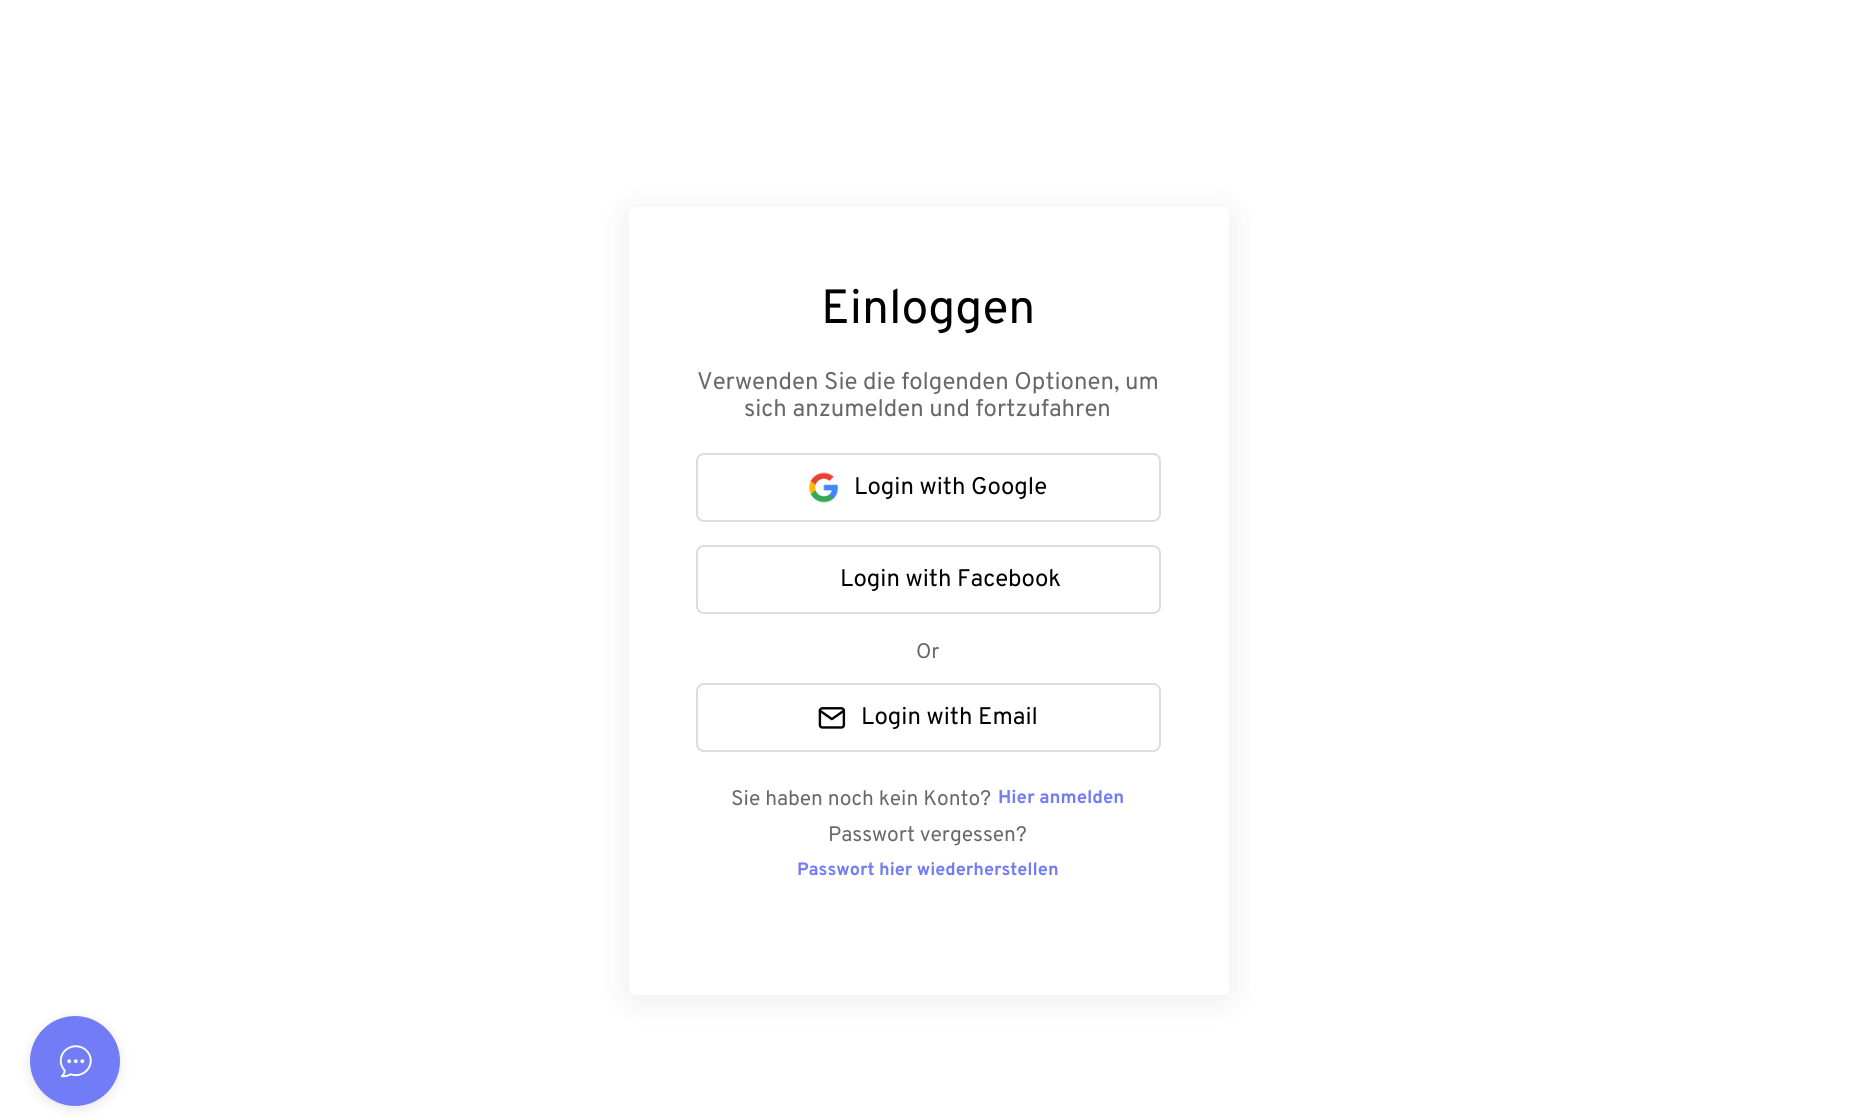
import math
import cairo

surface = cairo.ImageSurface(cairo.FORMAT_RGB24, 1855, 1120)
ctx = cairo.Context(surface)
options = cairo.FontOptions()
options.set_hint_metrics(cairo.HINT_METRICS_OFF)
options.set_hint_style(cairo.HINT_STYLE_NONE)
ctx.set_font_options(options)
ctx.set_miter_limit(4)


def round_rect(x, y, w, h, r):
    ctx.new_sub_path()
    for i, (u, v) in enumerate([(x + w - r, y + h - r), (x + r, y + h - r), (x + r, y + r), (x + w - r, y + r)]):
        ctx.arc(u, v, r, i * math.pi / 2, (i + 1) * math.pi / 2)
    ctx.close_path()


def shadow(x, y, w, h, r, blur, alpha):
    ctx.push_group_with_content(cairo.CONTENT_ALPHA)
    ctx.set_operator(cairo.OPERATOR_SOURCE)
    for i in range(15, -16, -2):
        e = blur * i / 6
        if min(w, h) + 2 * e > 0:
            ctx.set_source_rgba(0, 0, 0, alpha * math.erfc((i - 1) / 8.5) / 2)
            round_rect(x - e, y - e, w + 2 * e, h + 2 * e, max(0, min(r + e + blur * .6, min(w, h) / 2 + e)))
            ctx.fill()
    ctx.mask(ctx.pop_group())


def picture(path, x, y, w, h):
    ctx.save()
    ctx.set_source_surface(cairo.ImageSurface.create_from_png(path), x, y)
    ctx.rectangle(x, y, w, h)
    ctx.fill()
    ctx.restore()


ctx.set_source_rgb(1, 1, 1)
ctx.paint()
ctx.set_source_rgb(0, 0, 0)
shadow(629, 212, 600, 787, 6, 18, 0.08)
ctx.set_source_rgb(1, 1, 1)
round_rect(629, 207, 600, 788, 6)
ctx.fill()
ctx.select_font_face("Overpass")
ctx.set_font_size(48)
ctx.set_source_rgb(0, 0, 0)
ctx.move_to(821, 323)
ctx.show_text("Einloggen")
ctx.set_font_size(24)
ctx.set_source_rgb(0.408, 0.408, 0.408)
ctx.move_to(697, 389)
ctx.show_text("Verwenden Sie die folgenden Optionen, um")
ctx.move_to(744, 416)
ctx.show_text("sich anzumelden und fortzufahren")
round_rect(697, 454, 463, 67, 7)
ctx.set_source_rgb(0.867, 0.867, 0.867)
ctx.stroke()
picture("img1.png", 808, 472, 31, 31)
ctx.set_source_rgb(0, 0, 0)
ctx.move_to(854, 494)
ctx.show_text("Login with Google")
round_rect(697, 546, 463, 67, 7)
ctx.set_source_rgb(0.867, 0.867, 0.867)
ctx.stroke()
ctx.set_source_rgb(0, 0, 0)
ctx.move_to(840, 586)
ctx.show_text("Login with Facebook")
ctx.set_font_size(21)
ctx.set_source_rgb(0.408, 0.408, 0.408)
ctx.move_to(916, 658)
ctx.show_text("Or")
round_rect(697, 684, 463, 67, 7)
ctx.set_source_rgb(0.867, 0.867, 0.867)
ctx.stroke()
picture("img2.png", 818, 707, 28, 22)
ctx.set_font_size(24)
ctx.set_source_rgb(0, 0, 0)
ctx.move_to(861, 724)
ctx.show_text("Login with Email")
ctx.set_font_size(21)
ctx.set_source_rgb(0.408, 0.408, 0.408)
ctx.move_to(731, 805)
ctx.show_text("Sie haben noch kein Konto?")
ctx.select_font_face("Overpass", cairo.FONT_SLANT_NORMAL, cairo.FONT_WEIGHT_BOLD)
ctx.set_font_size(18.5)
ctx.set_source_rgb(0.447, 0.486, 0.961)
ctx.move_to(998, 803)
ctx.show_text("Hier anmelden")
ctx.select_font_face("Overpass")
ctx.set_font_size(21)
ctx.set_source_rgb(0.408, 0.408, 0.408)
ctx.move_to(828, 841)
ctx.show_text("Passwort vergessen?")
ctx.select_font_face("Overpass", cairo.FONT_SLANT_NORMAL, cairo.FONT_WEIGHT_BOLD)
ctx.set_font_size(18)
ctx.set_source_rgb(0.447, 0.486, 0.961)
ctx.move_to(797, 875)
ctx.show_text("Passwort hier wiederherstellen")
ctx.set_source_rgb(0, 0, 0)
shadow(30, 1019, 90, 90, 45, 6, 0.1)
ctx.set_source_rgb(0.447, 0.486, 0.961)
ctx.arc(75, 1061, 45, 0, 2 * math.pi)
ctx.fill()
picture("img3.png", 59, 1045, 33, 33)
surface.write_to_png("page.png")
